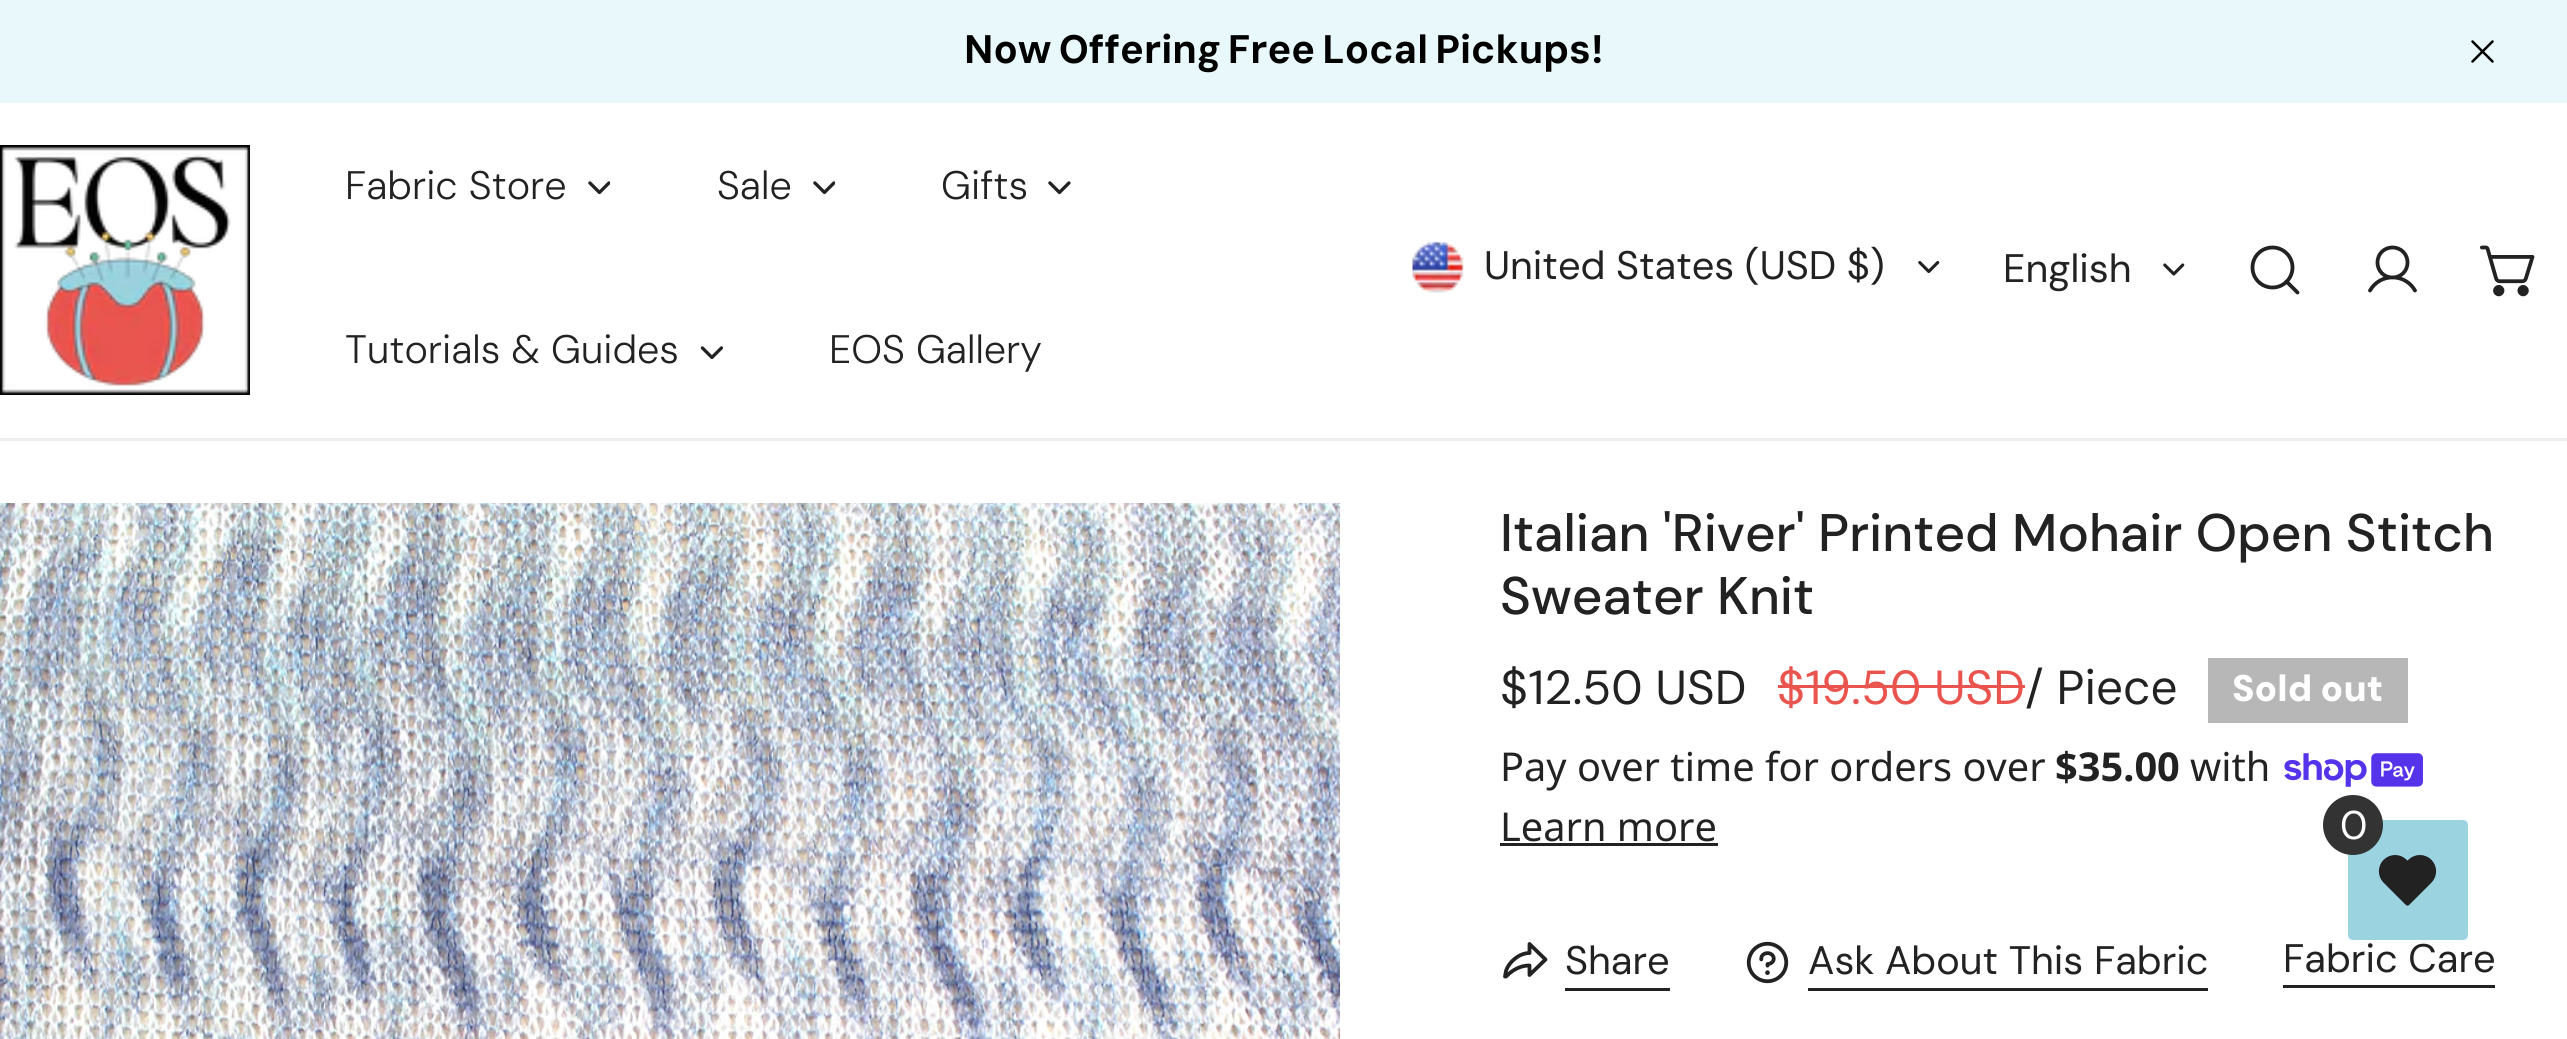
import math
import cairo

surface = cairo.ImageSurface(cairo.FORMAT_RGB24, 2567, 1039)
ctx = cairo.Context(surface)
options = cairo.FontOptions()
options.set_hint_metrics(cairo.HINT_METRICS_OFF)
options.set_hint_style(cairo.HINT_STYLE_NONE)
ctx.set_font_options(options)
ctx.set_miter_limit(4)


def spaced_text(x, y, s, letter, word):
    ctx.move_to(x, y)
    for ch in s:
        ctx.show_text(ch)
        ctx.rel_move_to(letter + word * (ch == ' '), 0)


def round_rect(x, y, w, h, r):
    ctx.new_sub_path()
    for i, (u, v) in enumerate([(x + w - r, y + h - r), (x + r, y + h - r), (x + r, y + r), (x + w - r, y + r)]):
        ctx.arc(u, v, r, i * math.pi / 2, (i + 1) * math.pi / 2)
    ctx.close_path()


def picture(path, x, y, w, h):
    ctx.save()
    ctx.set_source_surface(cairo.ImageSurface.create_from_png(path), x, y)
    ctx.rectangle(x, y, w, h)
    ctx.fill()
    ctx.restore()


ctx.set_source_rgb(1, 1, 1)
ctx.paint()
ctx.set_source_rgb(0.914, 0.969, 0.98)
ctx.rectangle(0, 0, 2567, 103)
ctx.fill()
ctx.select_font_face("DM Sans", cairo.FONT_SLANT_NORMAL, cairo.FONT_WEIGHT_BOLD)
ctx.set_font_size(39.75)
ctx.set_source_rgb(0, 0, 0)
spaced_text(964, 63, "Now Offering Free Local Pickups!", 0, -2.5)
ctx.new_path()
ctx.move_to(2492.5, 41.5)
ctx.line_to(2472.5, 61.5)
ctx.move_to(2472.5, 41.5)
ctx.line_to(2492.5, 61.5)
ctx.set_line_width(2.5)
ctx.set_line_cap(cairo.LINE_CAP_ROUND)
ctx.set_line_join(cairo.LINE_JOIN_ROUND)
ctx.stroke()
ctx.set_source_rgb(0.933, 0.933, 0.933)
ctx.rectangle(0, 438, 2567, 3)
ctx.fill()
picture("img1.png", 0, 145, 250, 250)
ctx.select_font_face("DM Sans Light")
ctx.set_source_rgb(0.133, 0.133, 0.133)
ctx.move_to(345, 199)
ctx.show_text("Fabric Store")
picture("img2.png", 588, 181, 22, 14)
ctx.move_to(717, 199)
ctx.show_text("Sale")
picture("img2.png", 813, 181, 22, 14)
ctx.move_to(941, 199)
ctx.show_text("Gifts")
picture("img3.png", 1048, 181, 23, 14)
ctx.move_to(345, 363)
ctx.show_text("Tutorials & Guides")
picture("img4.png", 700, 346, 23, 14)
ctx.move_to(829, 363)
ctx.show_text("EOS Gallery")
picture("img5.png", 1412, 241, 52, 52)
ctx.select_font_face("DM Sans")
ctx.move_to(1484, 279)
ctx.show_text("United States (USD $)")
picture("img6.png", 1918, 261, 22, 12)
ctx.move_to(2003, 282)
ctx.show_text("English")
picture("img7.png", 2163, 263, 22, 13)
ctx.arc(2272.5, 267.5, 20, 0, 2 * math.pi)
ctx.set_line_width(3.8)
ctx.set_line_cap(cairo.LINE_CAP_BUTT)
ctx.set_line_join(cairo.LINE_JOIN_MITER)
ctx.stroke()
ctx.new_path()
ctx.move_to(2297.5, 292.5)
ctx.line_to(2286.5, 281.5)
ctx.set_line_cap(cairo.LINE_CAP_ROUND)
ctx.set_line_join(cairo.LINE_JOIN_ROUND)
ctx.stroke()
ctx.new_path()
ctx.move_to(2392.5, 277.5)
ctx.curve_to(2401, 277.5, 2407.5, 271, 2407.5, 262.5)
ctx.curve_to(2407.5, 254, 2401, 247.5, 2392.5, 247.5)
ctx.curve_to(2384, 247.5, 2377.5, 254, 2377.5, 262.5)
ctx.curve_to(2377.5, 271, 2384, 277.5, 2392.5, 277.5)
ctx.close_path()
ctx.move_to(2370, 290.5)
ctx.curve_to(2380, 273, 2405, 273, 2415, 290.5)
ctx.stroke()
picture("img8.png", 2480, 245, 55, 52)
picture("img9.png", 0, 503, 1340, 536)
ctx.select_font_face("DM Sans Medium")
ctx.set_font_size(52.8)
ctx.move_to(1500, 551)
ctx.show_text("Italian 'River' Printed Mohair Open Stitch")
ctx.move_to(1500, 614)
ctx.show_text("Sweater Knit")
ctx.select_font_face("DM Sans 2")
ctx.set_font_size(47.75)
ctx.move_to(1500, 704)
ctx.show_text("$12.50 USD")
ctx.set_source_rgb(0.914, 0.329, 0.306)
ctx.move_to(1777, 704)
ctx.show_text("$19.50 USD")
ctx.rectangle(1778, 685, 247, 3)
ctx.fill()
ctx.set_source_rgb(0.133, 0.133, 0.133)
ctx.move_to(2025, 704)
ctx.show_text("/ Piece")
ctx.set_source_rgb(0.718, 0.718, 0.718)
ctx.rectangle(2208, 658, 200, 65)
ctx.fill()
ctx.select_font_face("DM Sans Black")
ctx.set_font_size(37)
ctx.set_source_rgb(1, 1, 1)
ctx.move_to(2232, 701)
ctx.show_text("Sold out")
ctx.select_font_face("Noto Sans")
ctx.set_font_size(39.75)
ctx.set_source_rgb(0.133, 0.133, 0.133)
ctx.move_to(1500, 781)
ctx.show_text("Pay over time for orders over")
ctx.select_font_face("Noto Sans", cairo.FONT_SLANT_NORMAL, cairo.FONT_WEIGHT_BOLD)
ctx.move_to(2055, 781)
ctx.show_text("$35.00")
ctx.select_font_face("Noto Sans")
ctx.move_to(2190, 781)
ctx.show_text("with")
picture("img10.png", 2284, 753, 139, 34)
ctx.move_to(1500, 841)
ctx.show_text("Learn more")
ctx.rectangle(1500, 843, 218, 3)
ctx.fill()
ctx.new_path()
ctx.move_to(1506, 976.5)
ctx.curve_to(1509.5, 973, 1517.5, 965.5, 1529.5, 965.5)
ctx.line_to(1529.5, 975)
ctx.line_to(1545.5, 959.5)
ctx.line_to(1529.5, 944)
ctx.line_to(1529.5, 953)
ctx.curve_to(1519.5, 953, 1509, 961.5, 1506, 971)
ctx.line_to(1505, 976.5)
ctx.close_path()
ctx.stroke()
ctx.rectangle(1565, 988, 105, 3)
ctx.fill()
ctx.select_font_face("DM Sans")
ctx.move_to(1565, 974)
ctx.show_text("Share")
picture("img11.png", 1746, 941, 43, 43)
ctx.rectangle(1808, 988, 400, 3)
ctx.fill()
ctx.move_to(1808, 974)
ctx.show_text("Ask About This Fabric")
ctx.move_to(2283, 972)
ctx.show_text("Fabric Care")
ctx.rectangle(2283, 985, 212, 3)
ctx.fill()
ctx.set_source_rgb(0.608, 0.827, 0.878)
round_rect(2348, 820, 120, 120, 5)
ctx.fill()
ctx.set_source_rgb(0.2, 0.2, 0.2)
ctx.arc(2353, 825, 30, 0, 2 * math.pi)
ctx.fill()
ctx.select_font_face("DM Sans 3")
ctx.set_font_size(40)
ctx.set_source_rgb(1, 1, 1)
ctx.move_to(2340, 839)
ctx.show_text("0")
picture("img12.png", 2378, 855, 59, 51)
surface.write_to_png("page.png")
